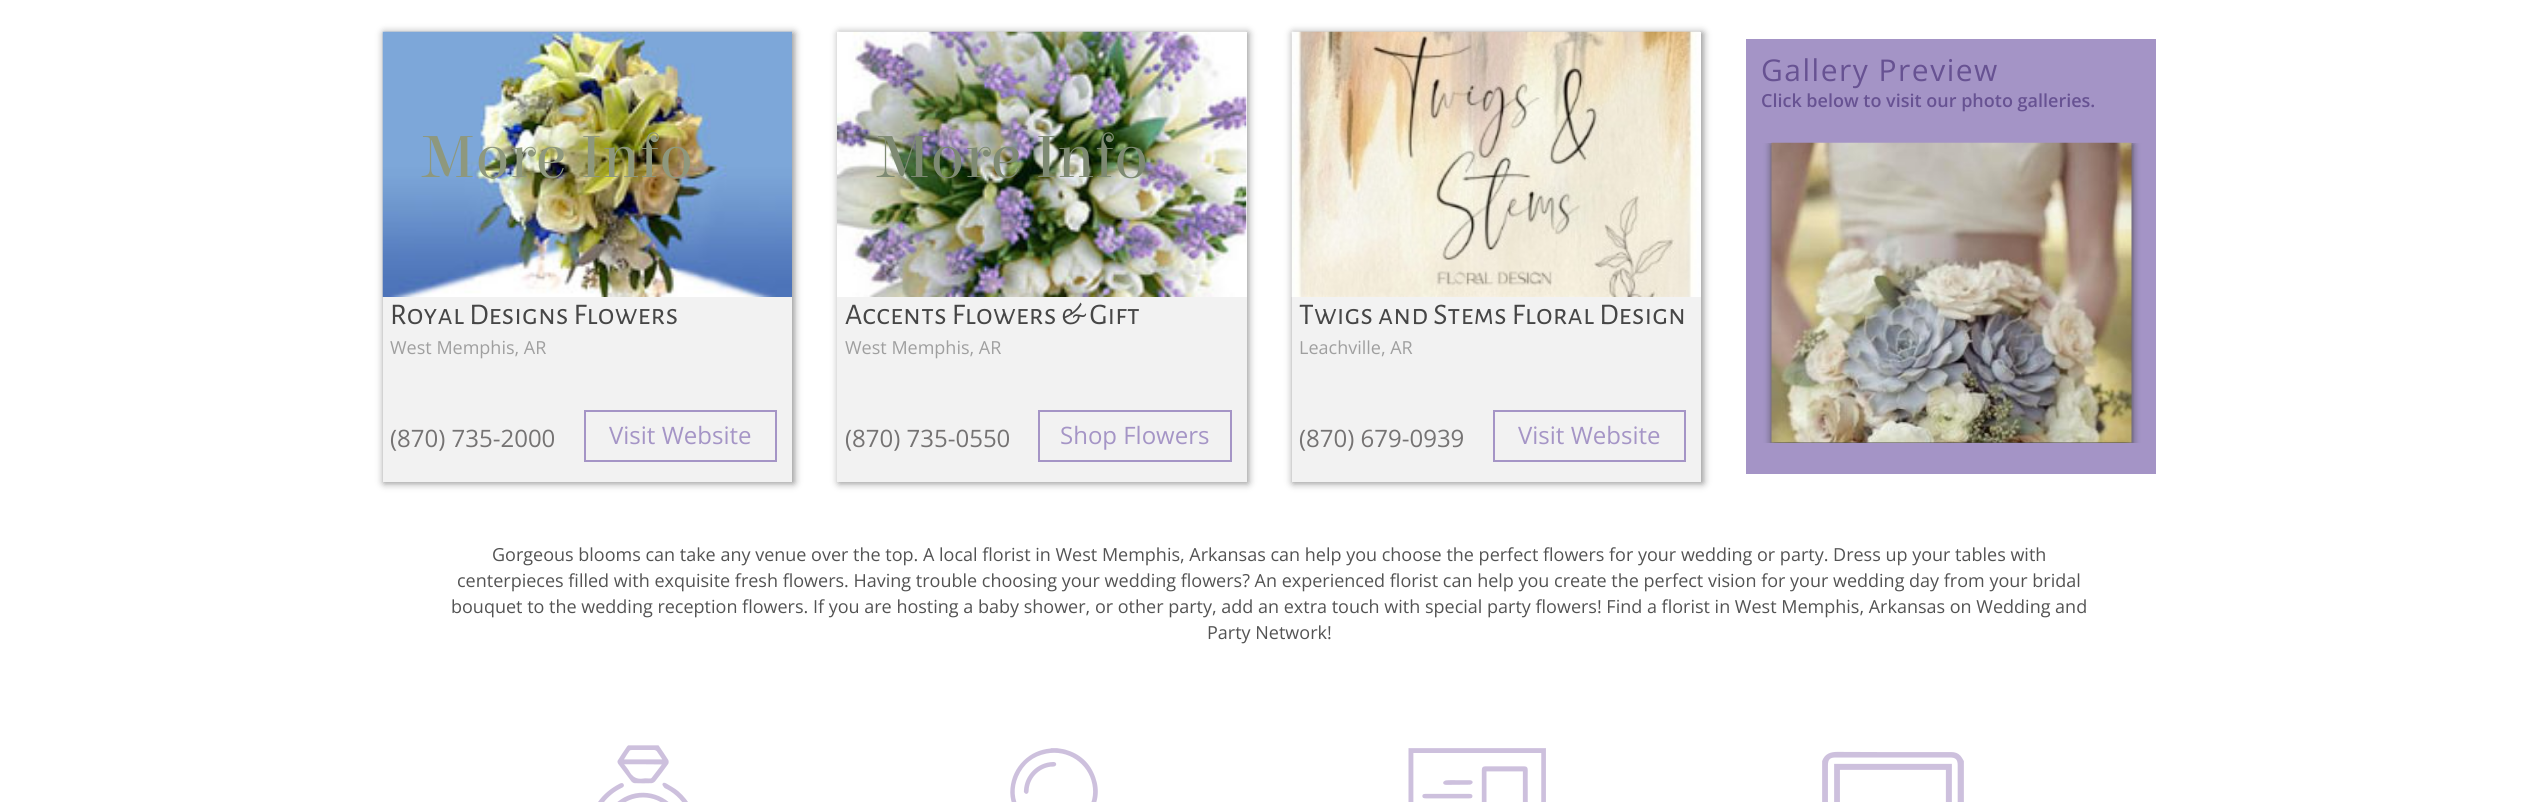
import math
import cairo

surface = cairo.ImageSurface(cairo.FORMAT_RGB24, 2538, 802)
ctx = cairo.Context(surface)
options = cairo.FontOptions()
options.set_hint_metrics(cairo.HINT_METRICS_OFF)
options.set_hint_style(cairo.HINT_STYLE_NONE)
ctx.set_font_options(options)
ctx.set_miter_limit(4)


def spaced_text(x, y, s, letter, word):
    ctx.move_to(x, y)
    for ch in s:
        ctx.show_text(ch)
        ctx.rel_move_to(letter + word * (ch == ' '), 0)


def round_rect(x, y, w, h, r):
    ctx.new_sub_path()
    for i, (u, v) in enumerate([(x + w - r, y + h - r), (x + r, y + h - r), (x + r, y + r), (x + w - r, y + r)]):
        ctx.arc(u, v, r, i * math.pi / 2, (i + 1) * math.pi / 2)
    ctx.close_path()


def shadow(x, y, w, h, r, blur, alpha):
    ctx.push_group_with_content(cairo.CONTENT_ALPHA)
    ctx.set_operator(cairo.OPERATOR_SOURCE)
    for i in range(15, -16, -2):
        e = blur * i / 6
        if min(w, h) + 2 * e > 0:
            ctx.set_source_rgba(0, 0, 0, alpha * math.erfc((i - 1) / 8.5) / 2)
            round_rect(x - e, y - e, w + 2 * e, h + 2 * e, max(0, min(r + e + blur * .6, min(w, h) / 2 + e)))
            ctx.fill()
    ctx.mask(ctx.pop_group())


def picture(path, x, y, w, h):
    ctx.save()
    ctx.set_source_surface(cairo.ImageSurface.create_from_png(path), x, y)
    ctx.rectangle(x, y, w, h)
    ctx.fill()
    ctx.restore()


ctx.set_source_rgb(1, 1, 1)
ctx.paint()
ctx.set_source_rgb(0.643, 0.58, 0.776)
ctx.rectangle(1746, 39, 410, 435)
ctx.fill()
ctx.select_font_face("Open Sans")
ctx.set_font_size(30)
ctx.set_source_rgb(0.404, 0.322, 0.573)
spaced_text(1761, 81, "Gallery Preview", 1.5, 0)
ctx.select_font_face("Open Sans SemiBold")
ctx.set_font_size(18)
ctx.move_to(1761, 107)
ctx.show_text("Click below to visit our photo galleries.")
ctx.save()
ctx.rectangle(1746, 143, 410, 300)
ctx.clip()
ctx.set_source_rgb(0.267, 0.267, 0.267)
shadow(1772, 144, 360, 540, 0, 4, 1)
ctx.restore()
picture("img1.png", 1771, 142, 361, 301)
ctx.set_source_rgb(0.533, 0.533, 0.533)
shadow(384, 33, 410, 450, 0, 4, 1)
ctx.set_source_rgb(0.949, 0.949, 0.949)
ctx.rectangle(383, 297, 409, 185)
ctx.fill()
picture("img2.png", 382, 31, 410, 266)
ctx.select_font_face("Elsie")
ctx.set_font_size(63)
ctx.set_source_rgb(0.557, 0.596, 0.494)
ctx.move_to(422, 177)
ctx.show_text("More Info")
ctx.select_font_face("Alegreya Sans SC")
ctx.set_font_size(30)
ctx.set_source_rgb(0.275, 0.275, 0.275)
ctx.move_to(390, 324)
ctx.show_text("Royal Designs Flowers")
ctx.select_font_face("Open Sans")
ctx.set_font_size(18)
ctx.set_source_rgb(0.624, 0.624, 0.624)
ctx.move_to(390, 354)
ctx.show_text("West Memphis, AR")
ctx.set_font_size(24)
ctx.set_source_rgb(0.459, 0.451, 0.451)
ctx.move_to(390, 447)
ctx.show_text("(870) 735-2000")
ctx.rectangle(585, 411, 191, 50)
ctx.set_source_rgb(0.647, 0.584, 0.776)
ctx.stroke()
ctx.move_to(609, 444)
ctx.show_text("Visit Website")
ctx.set_source_rgb(0.533, 0.533, 0.533)
shadow(839, 33, 409, 450, 0, 4, 1)
ctx.set_source_rgb(0.949, 0.949, 0.949)
ctx.rectangle(837, 297, 410, 185)
ctx.fill()
ctx.set_source_rgb(1, 1, 1)
ctx.rectangle(1246, 32, 1, 265)
ctx.fill()
picture("img3.png", 837, 31, 410, 266)
ctx.select_font_face("Elsie")
ctx.set_font_size(63)
ctx.set_source_rgb(0.494, 0.541, 0.451)
ctx.move_to(877, 177)
ctx.show_text("More Info")
ctx.select_font_face("Alegreya Sans SC")
ctx.set_font_size(30)
ctx.set_source_rgb(0.275, 0.275, 0.275)
ctx.move_to(845, 324)
ctx.show_text("Accents Flowers & Gift")
ctx.select_font_face("Open Sans")
ctx.set_font_size(18)
ctx.set_source_rgb(0.624, 0.624, 0.624)
ctx.move_to(845, 354)
ctx.show_text("West Memphis, AR")
ctx.set_font_size(24)
ctx.set_source_rgb(0.459, 0.451, 0.451)
ctx.move_to(845, 447)
ctx.show_text("(870) 735-0550")
ctx.rectangle(1039, 411, 192, 50)
ctx.set_source_rgb(0.647, 0.584, 0.776)
ctx.stroke()
ctx.move_to(1060, 444)
ctx.show_text("Shop Flowers")
ctx.set_source_rgb(0.533, 0.533, 0.533)
shadow(1293, 33, 410, 450, 0, 4, 1)
ctx.set_source_rgb(0.949, 0.949, 0.949)
ctx.rectangle(1292, 297, 409, 185)
ctx.fill()
ctx.set_source_rgb(1, 1, 1)
ctx.rectangle(1700, 32, 1, 265)
ctx.fill()
picture("img4.png", 1291, 31, 409, 266)
ctx.select_font_face("Alegreya Sans SC")
ctx.set_font_size(30)
ctx.set_source_rgb(0.275, 0.275, 0.275)
ctx.move_to(1299, 324)
ctx.show_text("Twigs and Stems Floral Design")
ctx.select_font_face("Open Sans")
ctx.set_font_size(18)
ctx.set_source_rgb(0.624, 0.624, 0.624)
ctx.move_to(1299, 354)
ctx.show_text("Leachville, AR")
ctx.set_font_size(24)
ctx.set_source_rgb(0.459, 0.451, 0.451)
ctx.move_to(1299, 447)
ctx.show_text("(870) 679-0939")
ctx.rectangle(1494, 411, 191, 50)
ctx.set_source_rgb(0.647, 0.584, 0.776)
ctx.stroke()
ctx.move_to(1518, 444)
ctx.show_text("Visit Website")
ctx.set_font_size(18)
ctx.set_source_rgb(0.325, 0.325, 0.325)
ctx.move_to(492, 561)
ctx.show_text("Gorgeous blooms can take any venue over the top. A local florist in West Memphis, Arkansas can help you choose the perfect flowers for your wedding or party. Dress up your tables with")
ctx.move_to(457, 587)
ctx.show_text("centerpieces filled with exquisite fresh flowers. Having trouble choosing your wedding flowers? An experienced florist can help you create the perfect vision for your wedding day from your bridal")
ctx.move_to(451, 613)
ctx.show_text("bouquet to the wedding reception flowers. If you are hosting a baby shower, or other party, add an extra touch with special party flowers! Find a florist in West Memphis, Arkansas on Wedding and")
ctx.move_to(1207, 639)
ctx.show_text("Party Network!")
picture("img5.png", 598, 745, 90, 57)
picture("img6.png", 1010, 748, 88, 54)
picture("img7.png", 1408, 748, 138, 54)
picture("img8.png", 1822, 751, 142, 51)
surface.write_to_png("page.png")
